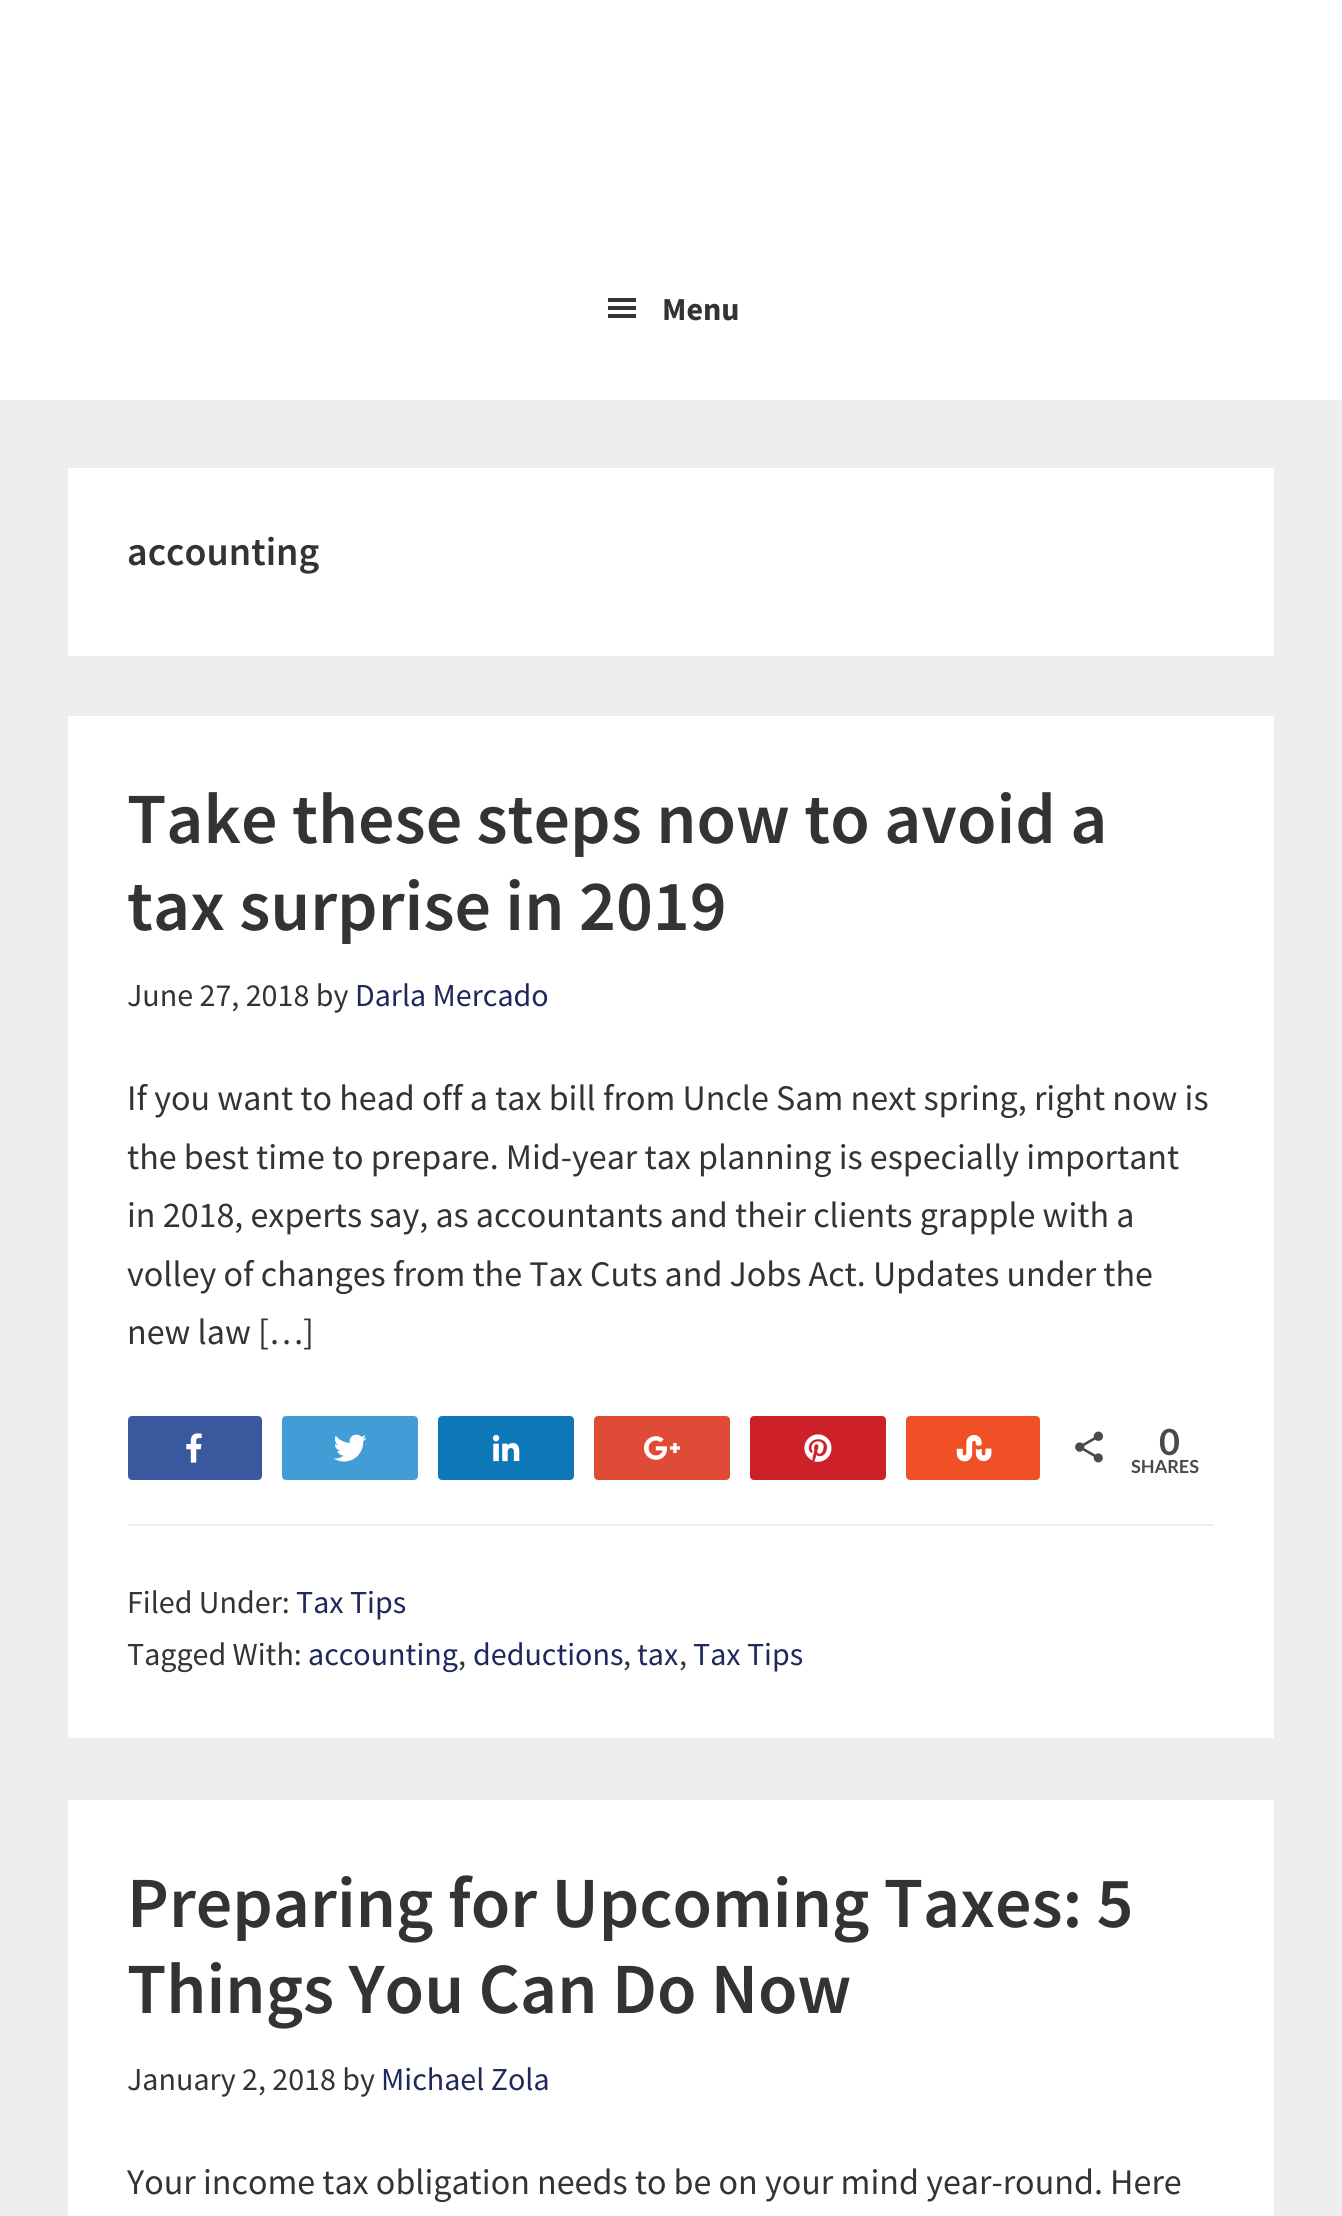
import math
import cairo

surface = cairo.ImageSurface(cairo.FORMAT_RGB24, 1342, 2216)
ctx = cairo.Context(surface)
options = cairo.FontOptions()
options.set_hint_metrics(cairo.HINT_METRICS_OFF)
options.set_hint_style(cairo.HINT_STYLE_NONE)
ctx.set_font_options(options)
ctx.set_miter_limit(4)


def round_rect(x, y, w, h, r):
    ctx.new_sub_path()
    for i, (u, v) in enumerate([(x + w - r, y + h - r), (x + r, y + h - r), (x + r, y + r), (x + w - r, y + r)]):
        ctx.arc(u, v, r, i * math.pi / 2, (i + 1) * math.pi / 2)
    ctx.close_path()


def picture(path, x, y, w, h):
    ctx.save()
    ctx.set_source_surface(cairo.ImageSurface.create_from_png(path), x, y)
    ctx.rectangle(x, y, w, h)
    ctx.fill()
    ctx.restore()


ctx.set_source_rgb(0.933, 0.933, 0.933)
ctx.paint()
ctx.set_source_rgb(1, 1, 1)
ctx.rectangle(0, 0, 1342, 400)
ctx.fill()
picture("img1.png", 608, 298, 28, 20)
ctx.select_font_face("Source Sans Pro", cairo.FONT_SLANT_NORMAL, cairo.FONT_WEIGHT_BOLD)
ctx.set_font_size(32)
ctx.set_source_rgb(0.2, 0.2, 0.2)
ctx.move_to(662, 320)
ctx.show_text("Menu")
ctx.set_source_rgb(1, 1, 1)
ctx.rectangle(68, 468, 1206, 188)
ctx.fill()
ctx.select_font_face("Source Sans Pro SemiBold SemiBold")
ctx.set_font_size(40)
ctx.set_source_rgb(0.2, 0.2, 0.2)
ctx.move_to(127, 565)
ctx.show_text("accounting")
ctx.set_source_rgb(1, 1, 1)
ctx.rectangle(68, 716, 1206, 1022)
ctx.fill()
ctx.set_font_size(72)
ctx.set_source_rgb(0.2, 0.2, 0.2)
ctx.move_to(127, 843)
ctx.show_text("Take these steps now to avoid a")
ctx.move_to(127, 930)
ctx.show_text("tax surprise in 2019")
ctx.select_font_face("Source Sans Pro")
ctx.set_font_size(32)
ctx.move_to(127, 1006)
ctx.show_text("June 27, 2018 by")
ctx.set_source_rgb(0.118, 0.157, 0.361)
ctx.move_to(355, 1006)
ctx.show_text("Darla Mercado")
ctx.set_font_size(36)
ctx.set_source_rgb(0.2, 0.2, 0.2)
ctx.move_to(127, 1110)
ctx.show_text("If you want to head off a tax bill from Uncle Sam next spring, right now is")
ctx.move_to(127, 1169)
ctx.show_text("the best time to prepare. Mid-year tax planning is especially important")
ctx.move_to(127, 1227)
ctx.show_text("in 2018, experts say, as accountants and their clients grapple with a")
ctx.move_to(127, 1286)
ctx.show_text("volley of changes from the Tax Cuts and Jobs Act. Updates under the")
ctx.move_to(127, 1344)
ctx.show_text("new law […]")
ctx.set_source_rgb(0.227, 0.345, 0.62)
round_rect(129, 1417, 132, 62, 3)
ctx.fill_preserve()
ctx.stroke()
picture("img2.png", 186, 1433, 16, 30)
ctx.set_source_rgb(0.259, 0.612, 0.839)
round_rect(283, 1417, 134, 62, 3)
ctx.fill_preserve()
ctx.stroke()
picture("img3.png", 333, 1434, 34, 28)
ctx.set_source_rgb(0.051, 0.467, 0.718)
round_rect(439, 1417, 134, 62, 3)
ctx.fill_preserve()
ctx.stroke()
picture("img4.png", 492, 1434, 28, 28)
ctx.set_source_rgb(0.875, 0.294, 0.216)
round_rect(595, 1417, 134, 62, 3)
ctx.fill_preserve()
ctx.stroke()
picture("img5.png", 644, 1436, 36, 24)
ctx.set_source_rgb(0.804, 0.125, 0.161)
round_rect(751, 1417, 134, 62, 3)
ctx.fill_preserve()
ctx.stroke()
picture("img6.png", 804, 1434, 28, 28)
ctx.set_source_rgb(0.937, 0.314, 0.145)
round_rect(907, 1417, 132, 62, 3)
ctx.fill_preserve()
ctx.stroke()
picture("img7.png", 956, 1434, 36, 28)
picture("img8.png", 1075, 1431, 28, 32)
ctx.select_font_face("Lato", cairo.FONT_SLANT_NORMAL, cairo.FONT_WEIGHT_BOLD)
ctx.set_source_rgb(0.278, 0.294, 0.302)
ctx.move_to(1159, 1455)
ctx.show_text("0")
ctx.set_font_size(18)
ctx.move_to(1131, 1473)
ctx.show_text("SHARES")
ctx.set_source_rgb(0.933, 0.933, 0.933)
ctx.rectangle(128, 1524, 1086, 2)
ctx.fill()
ctx.select_font_face("Source Sans Pro")
ctx.set_font_size(32)
ctx.set_source_rgb(0.2, 0.2, 0.2)
ctx.move_to(127, 1613)
ctx.show_text("Filed Under:")
ctx.set_source_rgb(0.118, 0.157, 0.361)
ctx.move_to(296, 1613)
ctx.show_text("Tax Tips")
ctx.set_source_rgb(0.2, 0.2, 0.2)
ctx.move_to(127, 1665)
ctx.show_text("Tagged With:")
ctx.set_source_rgb(0.118, 0.157, 0.361)
ctx.move_to(308, 1665)
ctx.show_text("accounting")
ctx.set_source_rgb(0.2, 0.2, 0.2)
ctx.move_to(458, 1665)
ctx.show_text(",")
ctx.set_source_rgb(0.118, 0.157, 0.361)
ctx.move_to(473, 1665)
ctx.show_text("deductions")
ctx.set_source_rgb(0.2, 0.2, 0.2)
ctx.move_to(623, 1665)
ctx.show_text(",")
ctx.set_source_rgb(0.118, 0.157, 0.361)
ctx.move_to(637, 1665)
ctx.show_text("tax")
ctx.set_source_rgb(0.2, 0.2, 0.2)
ctx.move_to(679, 1665)
ctx.show_text(",")
ctx.set_source_rgb(0.118, 0.157, 0.361)
ctx.move_to(693, 1665)
ctx.show_text("Tax Tips")
ctx.set_source_rgb(1, 1, 1)
ctx.rectangle(68, 1800, 1206, 416)
ctx.fill()
ctx.select_font_face("Source Sans Pro SemiBold SemiBold")
ctx.set_font_size(72)
ctx.set_source_rgb(0.2, 0.2, 0.2)
ctx.move_to(127, 1927)
ctx.show_text("Preparing for Upcoming Taxes: 5")
ctx.move_to(127, 2013)
ctx.show_text("Things You Can Do Now")
ctx.select_font_face("Source Sans Pro")
ctx.set_font_size(32)
ctx.move_to(127, 2090)
ctx.show_text("January 2, 2018 by")
ctx.set_source_rgb(0.118, 0.157, 0.361)
ctx.move_to(381, 2090)
ctx.show_text("Michael Zola")
ctx.set_font_size(36)
ctx.set_source_rgb(0.2, 0.2, 0.2)
ctx.move_to(127, 2194)
ctx.show_text("Your income tax obligation needs to be on your mind year-round. Here")
surface.write_to_png("page.png")
